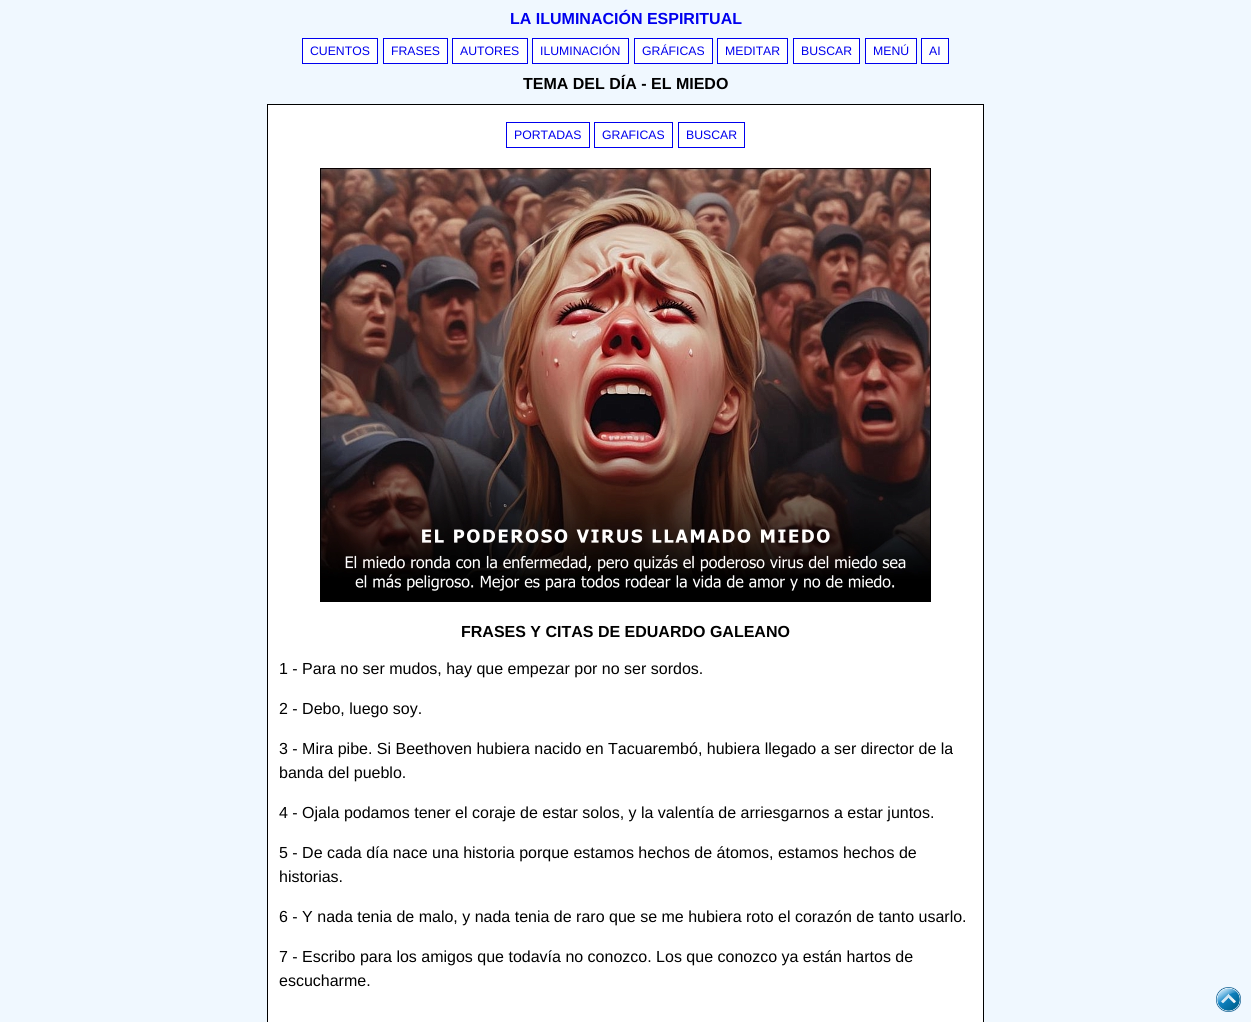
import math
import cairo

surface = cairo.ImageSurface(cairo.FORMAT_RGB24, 1251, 1022)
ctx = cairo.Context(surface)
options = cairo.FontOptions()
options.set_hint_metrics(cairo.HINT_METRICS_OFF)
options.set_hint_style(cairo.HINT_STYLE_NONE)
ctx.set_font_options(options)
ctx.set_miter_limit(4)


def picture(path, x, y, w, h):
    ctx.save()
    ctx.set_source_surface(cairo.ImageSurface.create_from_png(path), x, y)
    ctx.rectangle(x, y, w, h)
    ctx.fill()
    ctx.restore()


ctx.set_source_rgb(0.941, 0.969, 1)
ctx.paint()
ctx.set_source_rgb(0, 0, 0)
ctx.rectangle(267, 104, 717, 1)
ctx.fill()
ctx.select_font_face("Liberation Sans", cairo.FONT_SLANT_NORMAL, cairo.FONT_WEIGHT_BOLD)
ctx.set_font_size(16)
ctx.set_source_rgb(0, 0, 0.933)
ctx.move_to(510, 24)
ctx.show_text("LA ILUMINACIÓN ESPIRITUAL")
ctx.set_source_rgb(1, 1, 1)
ctx.rectangle(302.5, 38.5, 75, 25)
ctx.fill_preserve()
ctx.set_source_rgb(0, 0, 0.933)
ctx.set_line_width(1)
ctx.stroke()
ctx.select_font_face("Liberation Sans")
ctx.set_font_size(12.25)
ctx.move_to(310, 55)
ctx.show_text("CUENTOS")
ctx.set_source_rgb(1, 1, 1)
ctx.rectangle(383.5, 38.5, 64, 25)
ctx.fill_preserve()
ctx.set_source_rgb(0, 0, 0.933)
ctx.stroke()
ctx.move_to(391, 55)
ctx.show_text("FRASES")
ctx.set_source_rgb(1, 1, 1)
ctx.rectangle(452.5, 38.5, 75, 25)
ctx.fill_preserve()
ctx.set_source_rgb(0, 0, 0.933)
ctx.stroke()
ctx.move_to(460, 55)
ctx.show_text("AUTORES")
ctx.set_source_rgb(1, 1, 1)
ctx.rectangle(532.5, 38.5, 96, 25)
ctx.fill_preserve()
ctx.set_source_rgb(0, 0, 0.933)
ctx.stroke()
ctx.move_to(540, 55)
ctx.show_text("ILUMINACIÓN")
ctx.set_source_rgb(1, 1, 1)
ctx.rectangle(634.5, 38.5, 78, 25)
ctx.fill_preserve()
ctx.set_source_rgb(0, 0, 0.933)
ctx.stroke()
ctx.move_to(642, 55)
ctx.show_text("GRÁFICAS")
ctx.set_source_rgb(1, 1, 1)
ctx.rectangle(717.5, 38.5, 70, 25)
ctx.fill_preserve()
ctx.set_source_rgb(0, 0, 0.933)
ctx.stroke()
ctx.move_to(725, 55)
ctx.show_text("MEDITAR")
ctx.set_source_rgb(1, 1, 1)
ctx.rectangle(793.5, 38.5, 66, 25)
ctx.fill_preserve()
ctx.set_source_rgb(0, 0, 0.933)
ctx.stroke()
ctx.move_to(801, 55)
ctx.show_text("BUSCAR")
ctx.set_source_rgb(1, 1, 1)
ctx.rectangle(865.5, 38.5, 51, 25)
ctx.fill_preserve()
ctx.set_source_rgb(0, 0, 0.933)
ctx.stroke()
ctx.move_to(873, 55)
ctx.show_text("MENÚ")
ctx.set_source_rgb(1, 1, 1)
ctx.rectangle(921.5, 38.5, 27, 25)
ctx.fill_preserve()
ctx.set_source_rgb(0, 0, 0.933)
ctx.stroke()
ctx.move_to(929, 55)
ctx.show_text("AI")
ctx.select_font_face("Liberation Sans", cairo.FONT_SLANT_NORMAL, cairo.FONT_WEIGHT_BOLD)
ctx.set_font_size(16)
ctx.set_source_rgb(0, 0, 0)
ctx.move_to(523, 89)
ctx.show_text("TEMA DEL DÍA - EL MIEDO")
ctx.set_source_rgb(1, 1, 1)
ctx.rectangle(268, 105, 715, 917)
ctx.fill()
ctx.set_source_rgb(0, 0, 0)
ctx.rectangle(983, 105, 1, 917)
ctx.fill()
ctx.rectangle(267, 105, 1, 917)
ctx.fill()
ctx.rectangle(506.5, 122.5, 83, 25)
ctx.set_source_rgb(0, 0, 0.933)
ctx.stroke()
ctx.select_font_face("Liberation Sans")
ctx.set_font_size(12.25)
ctx.move_to(514, 139)
ctx.show_text("PORTADAS")
ctx.rectangle(594.5, 122.5, 78, 25)
ctx.stroke()
ctx.move_to(602, 139)
ctx.show_text("GRAFICAS")
ctx.rectangle(678.5, 122.5, 66, 25)
ctx.stroke()
ctx.move_to(686, 139)
ctx.show_text("BUSCAR")
picture("img1.png", 320, 168, 611, 434)
ctx.select_font_face("Liberation Sans", cairo.FONT_SLANT_NORMAL, cairo.FONT_WEIGHT_BOLD)
ctx.set_font_size(16)
ctx.set_source_rgb(0, 0, 0)
ctx.move_to(461, 637)
ctx.show_text("FRASES Y CITAS DE EDUARDO GALEANO")
ctx.select_font_face("Liberation Sans")
ctx.move_to(279, 674)
ctx.show_text("1 - Para no ser mudos, hay que empezar por no ser sordos.")
ctx.move_to(279, 714)
ctx.show_text("2 - Debo, luego soy.")
ctx.move_to(279, 754)
ctx.show_text("3 - Mira pibe. Si Beethoven hubiera nacido en Tacuarembó, hubiera llegado a ser director de la")
ctx.move_to(279, 778)
ctx.show_text("banda del pueblo.")
ctx.move_to(279, 818)
ctx.show_text("4 - Ojala podamos tener el coraje de estar solos, y la valentía de arriesgarnos a estar juntos.")
ctx.move_to(279, 858)
ctx.show_text("5 - De cada día nace una historia porque estamos hechos de átomos, estamos hechos de")
ctx.move_to(279, 882)
ctx.show_text("historias.")
ctx.move_to(279, 922)
ctx.show_text("6 - Y nada tenia de malo, y nada tenia de raro que se me hubiera roto el corazón de tanto usarlo.")
ctx.move_to(279, 962)
ctx.show_text("7 - Escribo para los amigos que todavía no conozco. Los que conozco ya están hartos de")
ctx.move_to(279, 986)
ctx.show_text("escucharme.")
picture("img2.png", 1216, 987, 25, 25)
surface.write_to_png("page.png")
